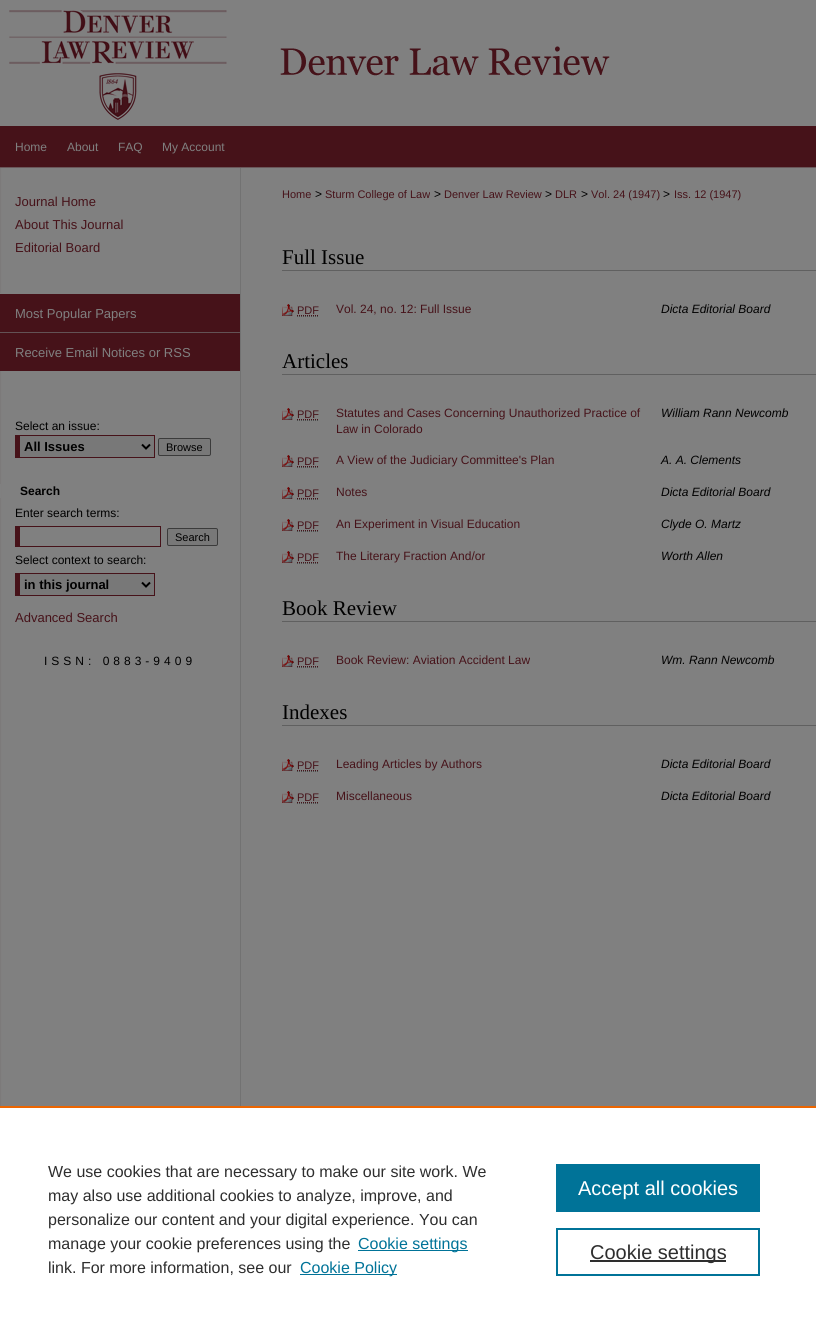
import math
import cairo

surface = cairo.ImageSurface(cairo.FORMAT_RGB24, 816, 1332)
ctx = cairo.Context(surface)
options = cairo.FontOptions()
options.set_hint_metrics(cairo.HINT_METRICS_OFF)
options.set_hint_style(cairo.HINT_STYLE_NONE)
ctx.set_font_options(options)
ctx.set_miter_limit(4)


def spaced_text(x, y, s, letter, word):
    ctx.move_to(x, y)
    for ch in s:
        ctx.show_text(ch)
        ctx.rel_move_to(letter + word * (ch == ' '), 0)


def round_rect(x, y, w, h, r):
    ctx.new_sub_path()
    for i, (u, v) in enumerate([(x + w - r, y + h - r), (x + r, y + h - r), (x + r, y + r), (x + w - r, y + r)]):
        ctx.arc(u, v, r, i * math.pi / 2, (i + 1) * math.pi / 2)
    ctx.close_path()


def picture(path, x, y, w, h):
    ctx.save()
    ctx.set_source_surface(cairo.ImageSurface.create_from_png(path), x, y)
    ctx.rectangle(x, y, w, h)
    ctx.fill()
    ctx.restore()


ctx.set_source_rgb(0.486, 0.478, 0.478)
ctx.paint()
picture("img1.png", 0, 126, 816, 42)
ctx.set_source_rgb(0.502, 0.502, 0.502)
ctx.rectangle(0, 0, 816, 126)
ctx.fill()
picture("img2.png", 9, 10, 601, 110)
ctx.select_font_face("Liberation Sans")
ctx.set_font_size(12)
ctx.move_to(15, 151)
ctx.show_text("Home")
ctx.move_to(67, 151)
ctx.show_text("About")
ctx.move_to(118, 151)
ctx.show_text("FAQ")
ctx.move_to(162, 151)
ctx.show_text("My Account")
picture("img3.png", 1, 168, 815, 938)
ctx.set_font_size(13)
ctx.set_source_rgb(0.275, 0.071, 0.098)
ctx.move_to(15, 206)
ctx.show_text("Journal Home")
ctx.move_to(15, 229)
ctx.show_text("About This Journal")
ctx.move_to(15, 252)
ctx.show_text("Editorial Board")
ctx.rectangle(0, 294, 240, 38)
ctx.fill()
ctx.set_source_rgb(0.502, 0.502, 0.502)
ctx.rectangle(0, 293, 1, 1)
ctx.fill()
ctx.set_source_rgb(0.388, 0.322, 0.333)
ctx.rectangle(0, 332, 240, 1)
ctx.fill()
ctx.set_source_rgb(0.502, 0.502, 0.502)
ctx.move_to(15, 318)
ctx.show_text("Most Popular Papers")
ctx.set_source_rgb(0.275, 0.071, 0.098)
ctx.rectangle(0, 333, 240, 38)
ctx.fill()
ctx.set_source_rgb(0.502, 0.502, 0.502)
ctx.move_to(15, 357)
ctx.show_text("Receive Email Notices or RSS")
ctx.set_font_size(12)
ctx.set_source_rgb(0, 0, 0)
ctx.move_to(15, 430)
ctx.show_text("Select an issue:")
ctx.set_source_rgb(0.471, 0.471, 0.471)
ctx.rectangle(20, 436, 134, 21)
ctx.fill()
ctx.set_source_rgb(0.275, 0.071, 0.098)
ctx.rectangle(15, 435, 140, 1)
ctx.fill()
ctx.rectangle(154, 435, 1, 23)
ctx.fill()
ctx.rectangle(15, 457, 140, 1)
ctx.fill()
ctx.rectangle(15, 435, 5, 23)
ctx.fill()
ctx.new_path()
ctx.move_to(142, 444.5)
ctx.line_to(146, 448.5)
ctx.line_to(150, 444.5)
ctx.set_source_rgb(0, 0, 0)
ctx.stroke()
ctx.select_font_face("Liberation Sans", cairo.FONT_SLANT_NORMAL, cairo.FONT_WEIGHT_BOLD)
ctx.set_font_size(13)
ctx.move_to(24, 451)
ctx.show_text("All Issues")
ctx.set_source_rgb(0.471, 0.471, 0.471)
round_rect(158.5, 438.5, 52, 17, 1.5)
ctx.fill_preserve()
ctx.set_source_rgb(0.231, 0.231, 0.231)
ctx.set_line_width(1)
ctx.stroke()
ctx.select_font_face("Liberation Sans")
ctx.set_font_size(11)
ctx.set_source_rgb(0, 0, 0)
ctx.move_to(166, 451)
ctx.show_text("Browse")
ctx.set_source_rgb(0.502, 0.502, 0.502)
ctx.rectangle(0, 484, 1, 14)
ctx.fill()
ctx.select_font_face("Liberation Sans", cairo.FONT_SLANT_NORMAL, cairo.FONT_WEIGHT_BOLD)
ctx.set_font_size(12)
ctx.set_source_rgb(0, 0, 0)
ctx.move_to(20, 495)
ctx.show_text("Search")
ctx.select_font_face("Liberation Sans")
ctx.move_to(15, 517)
ctx.show_text("Enter search terms:")
ctx.set_source_rgb(0.275, 0.071, 0.098)
ctx.rectangle(15, 526, 146, 1)
ctx.fill()
ctx.rectangle(160, 526, 1, 21)
ctx.fill()
ctx.rectangle(15, 546, 146, 1)
ctx.fill()
ctx.rectangle(15, 526, 5, 21)
ctx.fill()
ctx.set_source_rgb(0.471, 0.471, 0.471)
round_rect(167.5, 528.5, 50, 17, 1.5)
ctx.fill_preserve()
ctx.set_source_rgb(0.231, 0.231, 0.231)
ctx.stroke()
ctx.set_font_size(11)
ctx.set_source_rgb(0, 0, 0)
ctx.move_to(175, 541)
ctx.show_text("Search")
ctx.set_font_size(12)
ctx.move_to(15, 564)
ctx.show_text("Select context to search:")
ctx.set_source_rgb(0.471, 0.471, 0.471)
ctx.rectangle(20, 574, 134, 21)
ctx.fill()
ctx.set_source_rgb(0.275, 0.071, 0.098)
ctx.rectangle(15, 573, 140, 1)
ctx.fill()
ctx.rectangle(154, 573, 1, 23)
ctx.fill()
ctx.rectangle(15, 595, 140, 1)
ctx.fill()
ctx.rectangle(15, 573, 5, 23)
ctx.fill()
ctx.new_path()
ctx.move_to(142, 582.5)
ctx.line_to(146, 586.5)
ctx.line_to(150, 582.5)
ctx.set_source_rgb(0, 0, 0)
ctx.set_line_width(2)
ctx.stroke()
ctx.select_font_face("Liberation Sans", cairo.FONT_SLANT_NORMAL, cairo.FONT_WEIGHT_BOLD)
ctx.set_font_size(13)
ctx.move_to(24, 589)
ctx.show_text("in this journal")
ctx.select_font_face("Liberation Sans")
ctx.set_source_rgb(0.275, 0.071, 0.098)
ctx.move_to(15, 622)
ctx.show_text("Advanced Search")
ctx.set_font_size(12)
ctx.set_source_rgb(0, 0, 0)
spaced_text(44, 665, "ISSN: 0883-9409", 4, 0)
ctx.set_font_size(11)
ctx.set_source_rgb(0.275, 0.071, 0.098)
ctx.move_to(282, 198)
ctx.show_text("Home")
ctx.set_font_size(12)
ctx.set_source_rgb(0, 0, 0)
ctx.move_to(315, 198)
ctx.show_text(">")
ctx.set_font_size(11)
ctx.set_source_rgb(0.275, 0.071, 0.098)
ctx.move_to(325, 198)
ctx.show_text("Sturm College of Law")
ctx.set_font_size(12)
ctx.set_source_rgb(0, 0, 0)
ctx.move_to(434, 198)
ctx.show_text(">")
ctx.set_font_size(11)
ctx.set_source_rgb(0.275, 0.071, 0.098)
ctx.move_to(444, 198)
ctx.show_text("Denver Law Review")
ctx.set_font_size(12)
ctx.set_source_rgb(0, 0, 0)
ctx.move_to(545, 198)
ctx.show_text(">")
ctx.set_font_size(11)
ctx.set_source_rgb(0.275, 0.071, 0.098)
ctx.move_to(555, 198)
ctx.show_text("DLR")
ctx.set_font_size(12)
ctx.set_source_rgb(0, 0, 0)
ctx.move_to(581, 198)
ctx.show_text(">")
ctx.set_font_size(11)
ctx.set_source_rgb(0.275, 0.071, 0.098)
ctx.move_to(591, 198)
ctx.show_text("Vol. 24 (1947)")
ctx.set_font_size(12)
ctx.set_source_rgb(0, 0, 0)
ctx.move_to(663, 198)
ctx.show_text(">")
ctx.set_font_size(11)
ctx.set_source_rgb(0.275, 0.071, 0.098)
ctx.move_to(674, 198)
ctx.show_text("Iss. 12 (1947)")
ctx.set_source_rgb(0.376, 0.376, 0.376)
ctx.rectangle(282, 270, 534, 1)
ctx.fill()
ctx.select_font_face("Liberation Serif")
ctx.set_font_size(21)
ctx.set_source_rgb(0, 0, 0)
ctx.move_to(282, 264)
ctx.show_text("Full Issue")
picture("img4.png", 282, 304, 12, 12)
ctx.select_font_face("Liberation Sans")
ctx.set_font_size(11)
ctx.set_source_rgb(0.275, 0.071, 0.098)
ctx.move_to(297, 314)
ctx.show_text("PDF")
ctx.new_path()
ctx.move_to(297, 316.5)
ctx.line_to(319, 316.5)
ctx.set_source_rgb(0.302, 0.302, 0.302)
ctx.set_line_width(1)
ctx.set_dash([1, 1])
ctx.stroke()
ctx.new_path()
ctx.move_to(297, 315.5)
ctx.line_to(319, 315.5)
ctx.set_source_rgb(0.275, 0.071, 0.098)
ctx.stroke()
ctx.set_font_size(12)
ctx.move_to(336, 313)
ctx.show_text("Vol. 24, no. 12: Full Issue")
ctx.select_font_face("Liberation Sans", cairo.FONT_SLANT_ITALIC)
ctx.set_source_rgb(0, 0, 0)
ctx.move_to(661, 313)
ctx.show_text("Dicta Editorial Board")
ctx.set_source_rgb(0.376, 0.376, 0.376)
ctx.rectangle(282, 374, 534, 1)
ctx.fill()
ctx.select_font_face("Liberation Serif")
ctx.set_font_size(21)
ctx.set_source_rgb(0, 0, 0)
ctx.move_to(282, 368)
ctx.show_text("Articles")
picture("img4.png", 282, 408, 12, 12)
ctx.select_font_face("Liberation Sans")
ctx.set_font_size(11)
ctx.set_source_rgb(0.275, 0.071, 0.098)
ctx.move_to(297, 418)
ctx.show_text("PDF")
ctx.new_path()
ctx.move_to(297, 420.5)
ctx.line_to(319, 420.5)
ctx.set_source_rgb(0.302, 0.302, 0.302)
ctx.stroke()
ctx.new_path()
ctx.move_to(297, 419.5)
ctx.line_to(319, 419.5)
ctx.set_source_rgb(0.275, 0.071, 0.098)
ctx.stroke()
ctx.set_font_size(12)
ctx.move_to(336, 417)
ctx.show_text("Statutes and Cases Concerning Unauthorized Practice of")
ctx.move_to(336, 433)
ctx.show_text("Law in Colorado")
ctx.select_font_face("Liberation Sans", cairo.FONT_SLANT_ITALIC)
ctx.set_source_rgb(0, 0, 0)
ctx.move_to(661, 417)
ctx.show_text("William Rann Newcomb")
picture("img4.png", 282, 455, 12, 12)
ctx.select_font_face("Liberation Sans")
ctx.set_font_size(11)
ctx.set_source_rgb(0.275, 0.071, 0.098)
ctx.move_to(297, 465)
ctx.show_text("PDF")
ctx.new_path()
ctx.move_to(297, 467.5)
ctx.line_to(319, 467.5)
ctx.set_source_rgb(0.302, 0.302, 0.302)
ctx.stroke()
ctx.new_path()
ctx.move_to(297, 466.5)
ctx.line_to(319, 466.5)
ctx.set_source_rgb(0.275, 0.071, 0.098)
ctx.stroke()
ctx.set_font_size(12)
ctx.move_to(336, 464)
ctx.show_text("A View of the Judiciary Committee's Plan")
ctx.select_font_face("Liberation Sans", cairo.FONT_SLANT_ITALIC)
ctx.set_source_rgb(0, 0, 0)
ctx.move_to(661, 464)
ctx.show_text("A. A. Clements")
picture("img4.png", 282, 487, 12, 12)
ctx.select_font_face("Liberation Sans")
ctx.set_font_size(11)
ctx.set_source_rgb(0.275, 0.071, 0.098)
ctx.move_to(297, 497)
ctx.show_text("PDF")
ctx.new_path()
ctx.move_to(297, 499.5)
ctx.line_to(319, 499.5)
ctx.set_source_rgb(0.302, 0.302, 0.302)
ctx.stroke()
ctx.new_path()
ctx.move_to(297, 498.5)
ctx.line_to(319, 498.5)
ctx.set_source_rgb(0.275, 0.071, 0.098)
ctx.stroke()
ctx.set_font_size(12)
ctx.move_to(336, 496)
ctx.show_text("Notes")
ctx.select_font_face("Liberation Sans", cairo.FONT_SLANT_ITALIC)
ctx.set_source_rgb(0, 0, 0)
ctx.move_to(661, 496)
ctx.show_text("Dicta Editorial Board")
picture("img4.png", 282, 519, 12, 12)
ctx.select_font_face("Liberation Sans")
ctx.set_font_size(11)
ctx.set_source_rgb(0.275, 0.071, 0.098)
ctx.move_to(297, 529)
ctx.show_text("PDF")
ctx.new_path()
ctx.move_to(297, 531.5)
ctx.line_to(319, 531.5)
ctx.set_source_rgb(0.302, 0.302, 0.302)
ctx.stroke()
ctx.new_path()
ctx.move_to(297, 530.5)
ctx.line_to(319, 530.5)
ctx.set_source_rgb(0.275, 0.071, 0.098)
ctx.stroke()
ctx.set_font_size(12)
ctx.move_to(336, 528)
ctx.show_text("An Experiment in Visual Education")
ctx.select_font_face("Liberation Sans", cairo.FONT_SLANT_ITALIC)
ctx.set_source_rgb(0, 0, 0)
ctx.move_to(661, 528)
ctx.show_text("Clyde O. Martz")
picture("img4.png", 282, 551, 12, 12)
ctx.select_font_face("Liberation Sans")
ctx.set_font_size(11)
ctx.set_source_rgb(0.275, 0.071, 0.098)
ctx.move_to(297, 561)
ctx.show_text("PDF")
ctx.new_path()
ctx.move_to(297, 563.5)
ctx.line_to(319, 563.5)
ctx.set_source_rgb(0.302, 0.302, 0.302)
ctx.stroke()
ctx.new_path()
ctx.move_to(297, 562.5)
ctx.line_to(319, 562.5)
ctx.set_source_rgb(0.275, 0.071, 0.098)
ctx.stroke()
ctx.set_font_size(12)
ctx.move_to(336, 560)
ctx.show_text("The Literary Fraction And/or")
ctx.select_font_face("Liberation Sans", cairo.FONT_SLANT_ITALIC)
ctx.set_source_rgb(0, 0, 0)
ctx.move_to(661, 560)
ctx.show_text("Worth Allen")
ctx.set_source_rgb(0.376, 0.376, 0.376)
ctx.rectangle(282, 621, 534, 1)
ctx.fill()
ctx.select_font_face("Liberation Serif")
ctx.set_font_size(21)
ctx.set_source_rgb(0, 0, 0)
ctx.move_to(282, 615)
ctx.show_text("Book Review")
picture("img4.png", 282, 655, 12, 12)
ctx.select_font_face("Liberation Sans")
ctx.set_font_size(11)
ctx.set_source_rgb(0.275, 0.071, 0.098)
ctx.move_to(297, 665)
ctx.show_text("PDF")
ctx.new_path()
ctx.move_to(297, 667.5)
ctx.line_to(319, 667.5)
ctx.set_source_rgb(0.302, 0.302, 0.302)
ctx.stroke()
ctx.new_path()
ctx.move_to(297, 666.5)
ctx.line_to(319, 666.5)
ctx.set_source_rgb(0.275, 0.071, 0.098)
ctx.stroke()
ctx.set_font_size(12)
ctx.move_to(336, 664)
ctx.show_text("Book Review: Aviation Accident Law")
ctx.select_font_face("Liberation Sans", cairo.FONT_SLANT_ITALIC)
ctx.set_source_rgb(0, 0, 0)
ctx.move_to(661, 664)
ctx.show_text("Wm. Rann Newcomb")
ctx.set_source_rgb(0.376, 0.376, 0.376)
ctx.rectangle(282, 725, 534, 1)
ctx.fill()
ctx.select_font_face("Liberation Serif")
ctx.set_font_size(21)
ctx.set_source_rgb(0, 0, 0)
ctx.move_to(282, 719)
ctx.show_text("Indexes")
picture("img4.png", 282, 759, 12, 12)
ctx.select_font_face("Liberation Sans")
ctx.set_font_size(11)
ctx.set_source_rgb(0.275, 0.071, 0.098)
ctx.move_to(297, 769)
ctx.show_text("PDF")
ctx.new_path()
ctx.move_to(297, 771.5)
ctx.line_to(319, 771.5)
ctx.set_source_rgb(0.302, 0.302, 0.302)
ctx.stroke()
ctx.new_path()
ctx.move_to(297, 770.5)
ctx.line_to(319, 770.5)
ctx.set_source_rgb(0.275, 0.071, 0.098)
ctx.stroke()
ctx.set_font_size(12)
ctx.move_to(336, 768)
ctx.show_text("Leading Articles by Authors")
ctx.select_font_face("Liberation Sans", cairo.FONT_SLANT_ITALIC)
ctx.set_source_rgb(0, 0, 0)
ctx.move_to(661, 768)
ctx.show_text("Dicta Editorial Board")
picture("img4.png", 282, 791, 12, 12)
ctx.select_font_face("Liberation Sans")
ctx.set_font_size(11)
ctx.set_source_rgb(0.275, 0.071, 0.098)
ctx.move_to(297, 801)
ctx.show_text("PDF")
ctx.new_path()
ctx.move_to(297, 803.5)
ctx.line_to(319, 803.5)
ctx.set_source_rgb(0.302, 0.302, 0.302)
ctx.stroke()
ctx.new_path()
ctx.move_to(297, 802.5)
ctx.line_to(319, 802.5)
ctx.set_source_rgb(0.275, 0.071, 0.098)
ctx.stroke()
ctx.set_font_size(12)
ctx.move_to(336, 800)
ctx.show_text("Miscellaneous")
ctx.select_font_face("Liberation Sans", cairo.FONT_SLANT_ITALIC)
ctx.set_source_rgb(0, 0, 0)
ctx.move_to(661, 800)
ctx.show_text("Dicta Editorial Board")
ctx.set_source_rgb(1, 1, 1)
ctx.rectangle(0, 1108, 816, 224)
ctx.fill()
ctx.set_source_rgb(0.922, 0.396, 0)
ctx.rectangle(0, 1106, 816, 2)
ctx.fill()
ctx.select_font_face("Liberation Sans")
ctx.set_font_size(16)
ctx.set_source_rgb(0.18, 0.18, 0.18)
ctx.move_to(48, 1177)
ctx.show_text("We use cookies that are necessary to make our site work. We")
ctx.move_to(48, 1201)
ctx.show_text("may also use additional cookies to analyze, improve, and")
ctx.move_to(48, 1225)
ctx.show_text("personalize our content and your digital experience. You can")
ctx.move_to(48, 1249)
ctx.show_text("manage your cookie preferences using the")
ctx.set_source_rgb(0, 0.451, 0.596)
ctx.rectangle(358, 1250, 110, 1)
ctx.fill()
ctx.move_to(358, 1249)
ctx.show_text("Cookie settings")
ctx.set_source_rgb(0.18, 0.18, 0.18)
ctx.move_to(48, 1273)
ctx.show_text("link. For more information, see our")
ctx.set_source_rgb(0, 0.451, 0.596)
ctx.rectangle(300, 1274, 97, 1)
ctx.fill()
ctx.move_to(300, 1273)
ctx.show_text("Cookie Policy")
ctx.rectangle(556, 1164, 204, 48)
ctx.fill()
ctx.set_font_size(20)
ctx.set_source_rgb(1, 1, 1)
ctx.move_to(578, 1195)
ctx.show_text("Accept all cookies")
ctx.rectangle(557, 1229, 202, 46)
ctx.set_source_rgb(0, 0.451, 0.596)
ctx.set_line_width(2)
ctx.set_dash([])
ctx.stroke()
ctx.set_source_rgb(0.18, 0.18, 0.18)
ctx.rectangle(590, 1260, 136, 2)
ctx.fill()
ctx.move_to(590, 1259)
ctx.show_text("Cookie settings")
surface.write_to_png("page.png")
